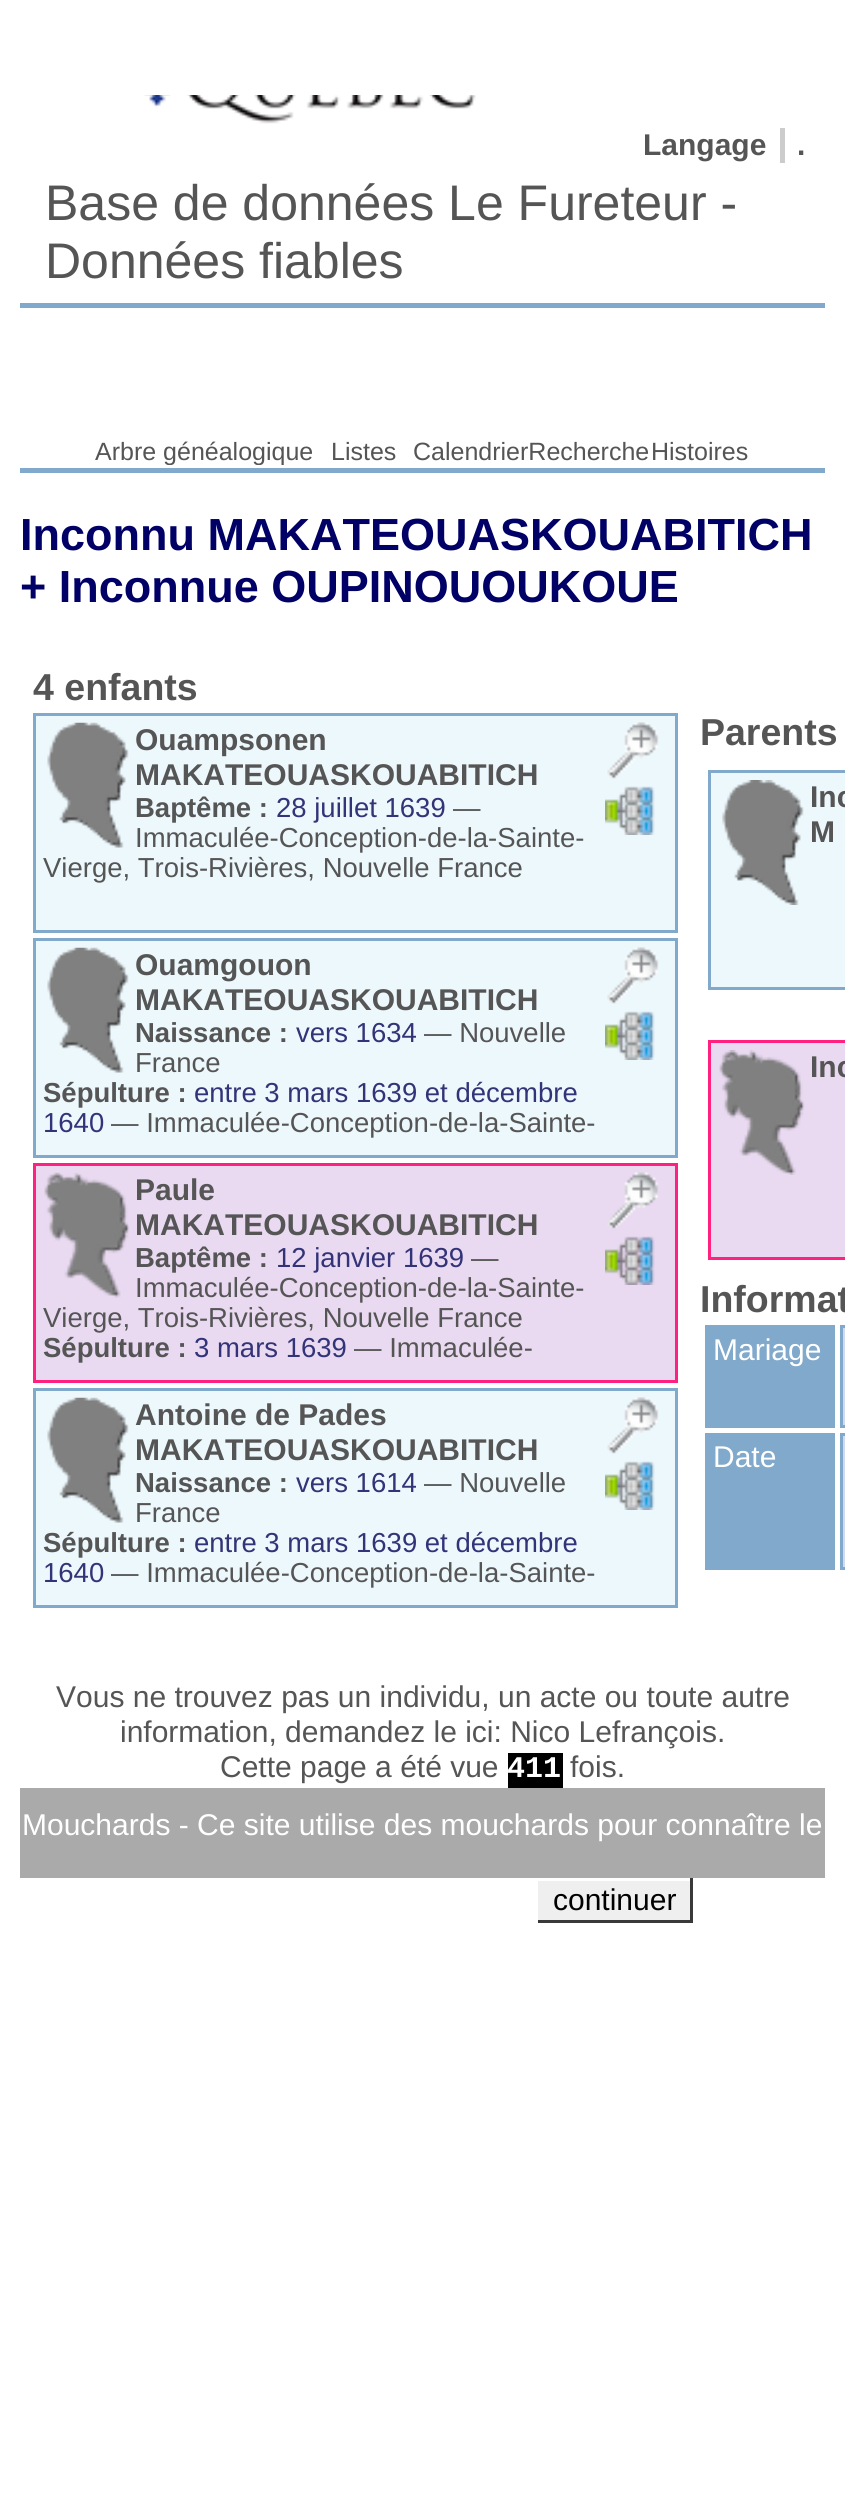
import math
import cairo

surface = cairo.ImageSurface(cairo.FORMAT_RGB24, 845, 2515)
ctx = cairo.Context(surface)
options = cairo.FontOptions()
options.set_hint_metrics(cairo.HINT_METRICS_OFF)
options.set_hint_style(cairo.HINT_STYLE_NONE)
ctx.set_font_options(options)
ctx.set_miter_limit(4)


def picture(path, x, y, w, h):
    ctx.save()
    ctx.set_source_surface(cairo.ImageSurface.create_from_png(path), x, y)
    ctx.rectangle(x, y, w, h)
    ctx.fill()
    ctx.restore()


ctx.set_source_rgb(1, 1, 1)
ctx.paint()
picture("img1.png", 144, 95, 332, 29)
ctx.select_font_face("Liberation Sans", cairo.FONT_SLANT_NORMAL, cairo.FONT_WEIGHT_BOLD)
ctx.set_font_size(30)
ctx.set_source_rgb(0.333, 0.333, 0.333)
ctx.move_to(643, 155)
ctx.show_text("Langage")
ctx.move_to(797, 155)
ctx.show_text(".")
ctx.set_source_rgb(0.8, 0.8, 0.8)
ctx.rectangle(780, 128, 5, 35)
ctx.fill()
ctx.select_font_face("Liberation Sans")
ctx.set_font_size(50)
ctx.set_source_rgb(0.333, 0.333, 0.333)
ctx.move_to(45, 220)
ctx.show_text("Base de données Le Fureteur -")
ctx.move_to(45, 278)
ctx.show_text("Données fiables")
ctx.set_source_rgb(0.506, 0.663, 0.796)
ctx.rectangle(20, 303, 805, 5)
ctx.fill()
ctx.rectangle(20, 468, 805, 5)
ctx.fill()
ctx.save()
ctx.rectangle(95, 308, 218, 157)
ctx.clip()
ctx.set_font_size(25)
ctx.set_source_rgb(0.333, 0.333, 0.333)
ctx.move_to(95, 460)
ctx.show_text("Arbre généalogique")
ctx.restore()
ctx.set_font_size(25)
ctx.set_source_rgb(0.333, 0.333, 0.333)
ctx.move_to(331, 460)
ctx.show_text("Listes")
ctx.move_to(413, 460)
ctx.show_text("CalendrierRecherche")
ctx.move_to(651, 460)
ctx.show_text("Histoires")
ctx.select_font_face("Liberation Sans", cairo.FONT_SLANT_NORMAL, cairo.FONT_WEIGHT_BOLD)
ctx.set_font_size(45)
ctx.set_source_rgb(0, 0, 0.4)
ctx.move_to(20, 550)
ctx.show_text("Inconnu MAKATEOUASKOUABITICH")
ctx.move_to(20, 602)
ctx.show_text("+ Inconnue OUPINOUOUKOUE")
ctx.set_font_size(37.5)
ctx.set_source_rgb(0.333, 0.333, 0.333)
ctx.move_to(33, 700)
ctx.show_text("4 enfants")
ctx.set_source_rgb(0.929, 0.969, 0.992)
ctx.rectangle(34.5, 714.5, 642, 217)
ctx.fill_preserve()
ctx.set_source_rgb(0.506, 0.663, 0.796)
ctx.set_line_width(3)
ctx.stroke()
picture("img2.png", 47, 722, 82, 126)
ctx.set_font_size(30)
ctx.set_source_rgb(0.333, 0.333, 0.333)
ctx.move_to(135, 750)
ctx.show_text("Ouampsonen")
ctx.move_to(135, 785)
ctx.show_text("MAKATEOUASKOUABITICH")
ctx.set_font_size(27.5)
ctx.move_to(135, 817)
ctx.show_text("Baptême :")
ctx.select_font_face("Liberation Sans")
ctx.set_source_rgb(0.2, 0.2, 0.467)
ctx.move_to(276, 817)
ctx.show_text("28 juillet 1639")
ctx.set_source_rgb(0.333, 0.333, 0.333)
ctx.move_to(453, 817)
ctx.show_text("—")
ctx.move_to(135, 847)
ctx.show_text("Immaculée-Conception-de-la-Sainte-")
ctx.move_to(43, 877)
ctx.show_text("Vierge, Trois-Rivières, Nouvelle France")
picture("img3.png", 607, 722, 52, 57)
picture("img4.png", 605, 786, 50, 49)
ctx.set_source_rgb(0.929, 0.969, 0.992)
ctx.rectangle(34.5, 939.5, 642, 217)
ctx.fill_preserve()
ctx.set_source_rgb(0.506, 0.663, 0.796)
ctx.stroke()
picture("img2.png", 47, 947, 82, 126)
ctx.select_font_face("Liberation Sans", cairo.FONT_SLANT_NORMAL, cairo.FONT_WEIGHT_BOLD)
ctx.set_font_size(30)
ctx.set_source_rgb(0.333, 0.333, 0.333)
ctx.move_to(135, 975)
ctx.show_text("Ouamgouon")
ctx.move_to(135, 1010)
ctx.show_text("MAKATEOUASKOUABITICH")
ctx.set_font_size(27.5)
ctx.move_to(135, 1042)
ctx.show_text("Naissance :")
ctx.select_font_face("Liberation Sans")
ctx.set_source_rgb(0.2, 0.2, 0.467)
ctx.move_to(296, 1042)
ctx.show_text("vers 1634")
ctx.set_source_rgb(0.333, 0.333, 0.333)
ctx.move_to(424, 1042)
ctx.show_text("— Nouvelle")
ctx.move_to(135, 1072)
ctx.show_text("France")
ctx.select_font_face("Liberation Sans", cairo.FONT_SLANT_NORMAL, cairo.FONT_WEIGHT_BOLD)
ctx.move_to(43, 1102)
ctx.show_text("Sépulture :")
ctx.select_font_face("Liberation Sans")
ctx.set_source_rgb(0.2, 0.2, 0.467)
ctx.move_to(194, 1102)
ctx.show_text("entre 3 mars 1639 et décembre")
ctx.move_to(43, 1132)
ctx.show_text("1640")
ctx.set_source_rgb(0.333, 0.333, 0.333)
ctx.move_to(111, 1132)
ctx.show_text("— Immaculée-Conception-de-la-Sainte-")
picture("img3.png", 607, 947, 52, 57)
picture("img4.png", 605, 1011, 50, 49)
ctx.set_source_rgb(0.914, 0.855, 0.945)
ctx.rectangle(34.5, 1164.5, 642, 217)
ctx.fill_preserve()
ctx.set_source_rgb(1, 0.125, 0.502)
ctx.stroke()
picture("img5.png", 44, 1172, 86, 126)
ctx.select_font_face("Liberation Sans", cairo.FONT_SLANT_NORMAL, cairo.FONT_WEIGHT_BOLD)
ctx.set_font_size(30)
ctx.set_source_rgb(0.333, 0.333, 0.333)
ctx.move_to(135, 1200)
ctx.show_text("Paule")
ctx.move_to(135, 1235)
ctx.show_text("MAKATEOUASKOUABITICH")
ctx.set_font_size(27.5)
ctx.move_to(135, 1267)
ctx.show_text("Baptême :")
ctx.select_font_face("Liberation Sans")
ctx.set_source_rgb(0.2, 0.2, 0.467)
ctx.move_to(276, 1267)
ctx.show_text("12 janvier 1639")
ctx.set_source_rgb(0.333, 0.333, 0.333)
ctx.move_to(471, 1267)
ctx.show_text("—")
ctx.move_to(135, 1297)
ctx.show_text("Immaculée-Conception-de-la-Sainte-")
ctx.move_to(43, 1327)
ctx.show_text("Vierge, Trois-Rivières, Nouvelle France")
ctx.select_font_face("Liberation Sans", cairo.FONT_SLANT_NORMAL, cairo.FONT_WEIGHT_BOLD)
ctx.move_to(43, 1357)
ctx.show_text("Sépulture :")
ctx.select_font_face("Liberation Sans")
ctx.set_source_rgb(0.2, 0.2, 0.467)
ctx.move_to(194, 1357)
ctx.show_text("3 mars 1639")
ctx.set_source_rgb(0.333, 0.333, 0.333)
ctx.move_to(354, 1357)
ctx.show_text("— Immaculée-")
picture("img6.png", 607, 1172, 52, 57)
picture("img7.png", 605, 1236, 50, 49)
ctx.set_source_rgb(0.929, 0.969, 0.992)
ctx.rectangle(34.5, 1389.5, 642, 217)
ctx.fill_preserve()
ctx.set_source_rgb(0.506, 0.663, 0.796)
ctx.stroke()
picture("img2.png", 47, 1397, 82, 126)
ctx.select_font_face("Liberation Sans", cairo.FONT_SLANT_NORMAL, cairo.FONT_WEIGHT_BOLD)
ctx.set_font_size(30)
ctx.set_source_rgb(0.333, 0.333, 0.333)
ctx.move_to(135, 1425)
ctx.show_text("Antoine de Pades")
ctx.move_to(135, 1460)
ctx.show_text("MAKATEOUASKOUABITICH")
ctx.set_font_size(27.5)
ctx.move_to(135, 1492)
ctx.show_text("Naissance :")
ctx.select_font_face("Liberation Sans")
ctx.set_source_rgb(0.2, 0.2, 0.467)
ctx.move_to(296, 1492)
ctx.show_text("vers 1614")
ctx.set_source_rgb(0.333, 0.333, 0.333)
ctx.move_to(424, 1492)
ctx.show_text("— Nouvelle")
ctx.move_to(135, 1522)
ctx.show_text("France")
ctx.select_font_face("Liberation Sans", cairo.FONT_SLANT_NORMAL, cairo.FONT_WEIGHT_BOLD)
ctx.move_to(43, 1552)
ctx.show_text("Sépulture :")
ctx.select_font_face("Liberation Sans")
ctx.set_source_rgb(0.2, 0.2, 0.467)
ctx.move_to(194, 1552)
ctx.show_text("entre 3 mars 1639 et décembre")
ctx.move_to(43, 1582)
ctx.show_text("1640")
ctx.set_source_rgb(0.333, 0.333, 0.333)
ctx.move_to(111, 1582)
ctx.show_text("— Immaculée-Conception-de-la-Sainte-")
picture("img3.png", 607, 1397, 52, 57)
picture("img4.png", 605, 1461, 50, 49)
ctx.select_font_face("Liberation Sans", cairo.FONT_SLANT_NORMAL, cairo.FONT_WEIGHT_BOLD)
ctx.set_font_size(37.5)
ctx.move_to(700, 745)
ctx.show_text("Parents")
ctx.set_source_rgb(0.929, 0.969, 0.992)
ctx.rectangle(709.5, 771.5, 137, 217)
ctx.fill_preserve()
ctx.set_source_rgb(0.506, 0.663, 0.796)
ctx.stroke()
picture("img8.png", 722, 780, 82, 125)
ctx.set_font_size(30)
ctx.set_source_rgb(0.333, 0.333, 0.333)
ctx.move_to(810, 807)
ctx.show_text("Inc")
ctx.move_to(810, 842)
ctx.show_text("M")
ctx.set_source_rgb(0.914, 0.855, 0.945)
ctx.rectangle(709.5, 1041.5, 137, 217)
ctx.fill_preserve()
ctx.set_source_rgb(1, 0.125, 0.502)
ctx.stroke()
picture("img9.png", 719, 1050, 86, 125)
ctx.set_source_rgb(0.333, 0.333, 0.333)
ctx.move_to(810, 1077)
ctx.show_text("Inc")
ctx.set_font_size(37.5)
ctx.move_to(700, 1312)
ctx.show_text("Informat")
ctx.set_source_rgb(0.506, 0.663, 0.796)
ctx.rectangle(705, 1325, 130, 103)
ctx.fill()
ctx.select_font_face("Liberation Sans")
ctx.set_font_size(30)
ctx.set_source_rgb(1, 1, 1)
ctx.move_to(713, 1360)
ctx.show_text("Mariage")
ctx.set_source_rgb(0.82, 0.851, 0.937)
ctx.rectangle(841.5, 1326.5, 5, 100)
ctx.fill_preserve()
ctx.set_source_rgb(0.506, 0.663, 0.796)
ctx.stroke()
ctx.rectangle(705, 1433, 130, 137)
ctx.fill()
ctx.set_source_rgb(1, 1, 1)
ctx.move_to(713, 1467)
ctx.show_text("Date")
ctx.set_source_rgb(0.82, 0.851, 0.937)
ctx.rectangle(841.5, 1434.5, 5, 134)
ctx.fill_preserve()
ctx.set_source_rgb(0.506, 0.663, 0.796)
ctx.stroke()
ctx.set_source_rgb(0.333, 0.333, 0.333)
ctx.move_to(56, 1707)
ctx.show_text("Vous ne trouvez pas un individu, un acte ou toute autre")
ctx.move_to(120, 1742)
ctx.show_text("information, demandez le ici: Nico Lefrançois.")
ctx.move_to(220, 1777)
ctx.show_text("Cette page a été vue")
ctx.set_source_rgb(0, 0, 0)
ctx.rectangle(508, 1753, 55, 35)
ctx.fill()
ctx.select_font_face("Liberation Mono", cairo.FONT_SLANT_NORMAL, cairo.FONT_WEIGHT_BOLD)
ctx.set_source_rgb(1, 1, 1)
ctx.move_to(507, 1777)
ctx.show_text("411")
ctx.select_font_face("Liberation Sans")
ctx.set_source_rgb(0.333, 0.333, 0.333)
ctx.move_to(570, 1777)
ctx.show_text("fois.")
ctx.set_source_rgb(0.667, 0.667, 0.667)
ctx.rectangle(20, 1788, 805, 90)
ctx.fill()
ctx.set_source_rgb(1, 1, 1)
ctx.move_to(22, 1835)
ctx.show_text("Mouchards - Ce site utilise des mouchards pour connaître le")
ctx.set_source_rgb(0.937, 0.937, 0.937)
ctx.rectangle(538, 1881, 152, 39)
ctx.fill()
ctx.set_source_rgb(0.224, 0.224, 0.224)
ctx.rectangle(690, 1878, 3, 45)
ctx.fill()
ctx.rectangle(535, 1920, 158, 3)
ctx.fill()
ctx.set_source_rgb(1, 1, 1)
ctx.rectangle(535, 1920, 3, 3)
ctx.fill()
ctx.set_source_rgb(0, 0, 0)
ctx.move_to(553, 1910)
ctx.show_text("continuer")
surface.write_to_png("page.png")
